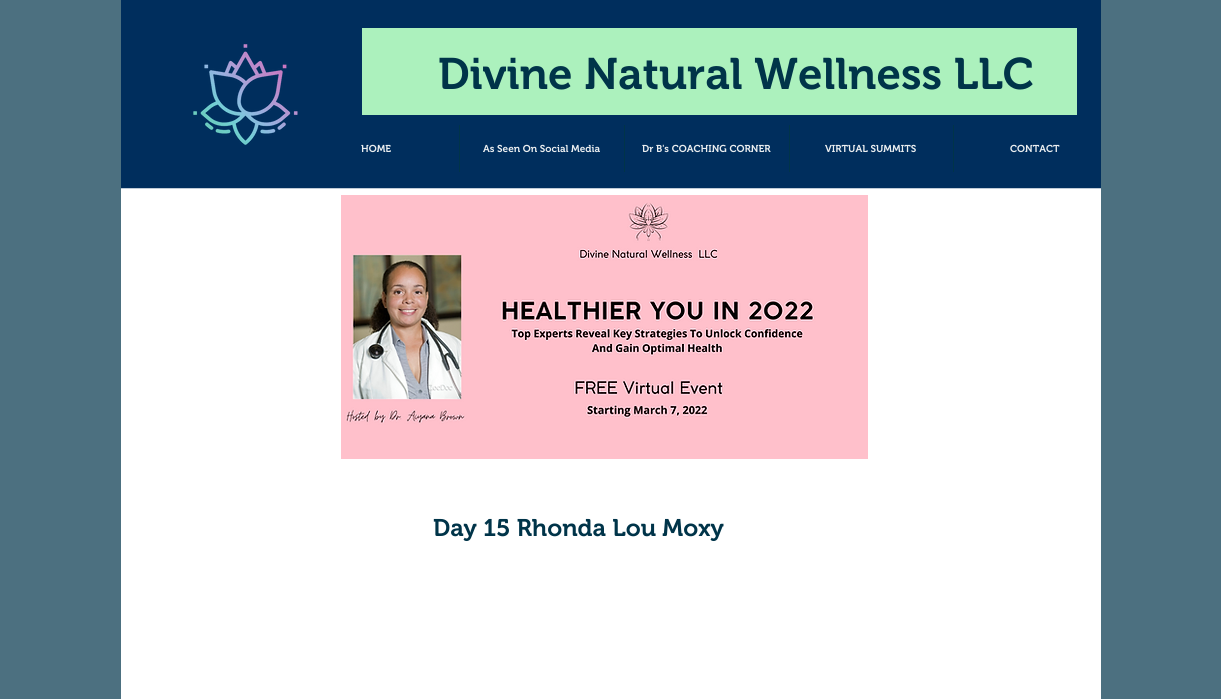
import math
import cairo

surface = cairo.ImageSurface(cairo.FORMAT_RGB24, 1221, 699)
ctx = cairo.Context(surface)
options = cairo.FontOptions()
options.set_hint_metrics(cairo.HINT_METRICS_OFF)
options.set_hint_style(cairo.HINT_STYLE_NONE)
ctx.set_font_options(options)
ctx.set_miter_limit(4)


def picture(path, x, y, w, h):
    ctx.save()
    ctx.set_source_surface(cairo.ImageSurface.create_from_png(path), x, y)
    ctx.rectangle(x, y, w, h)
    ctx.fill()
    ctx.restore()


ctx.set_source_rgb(0.298, 0.439, 0.502)
ctx.paint()
ctx.set_source_rgb(0, 0.18, 0.365)
ctx.rectangle(121, 0, 980, 188)
ctx.fill()
ctx.set_source_rgb(0.749, 0.796, 0.843)
ctx.rectangle(121, 188, 980, 1)
ctx.fill()
picture("img1.png", 193, 44, 105, 101)
ctx.set_source_rgb(0.675, 0.945, 0.741)
ctx.rectangle(362, 28, 715, 87)
ctx.fill()
ctx.select_font_face("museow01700 SemiBold")
ctx.set_font_size(44)
ctx.set_source_rgb(0, 0.204, 0.286)
ctx.move_to(438, 89)
ctx.show_text("Divine Natural Wellness LLC")
ctx.set_font_size(10)
ctx.set_source_rgb(0.918, 0.933, 0.941)
ctx.move_to(361, 152)
ctx.show_text("HOME")
ctx.set_source_rgb(0, 0.204, 0.286)
ctx.rectangle(459, 125, 1, 47)
ctx.fill()
ctx.set_source_rgb(0.918, 0.933, 0.941)
ctx.move_to(483, 152)
ctx.show_text("As Seen On Social Media")
ctx.set_source_rgb(0, 0.204, 0.286)
ctx.rectangle(624, 125, 1, 47)
ctx.fill()
ctx.set_source_rgb(0.918, 0.933, 0.941)
ctx.move_to(642, 152)
ctx.show_text("Dr B's COACHING CORNER")
ctx.set_source_rgb(0, 0.204, 0.286)
ctx.rectangle(789, 125, 1, 47)
ctx.fill()
ctx.set_source_rgb(0.918, 0.933, 0.941)
ctx.move_to(825, 152)
ctx.show_text("VIRTUAL SUMMITS")
ctx.set_source_rgb(0, 0.204, 0.286)
ctx.rectangle(953, 125, 1, 47)
ctx.fill()
ctx.set_source_rgb(0.918, 0.933, 0.941)
ctx.move_to(1010, 152)
ctx.show_text("CONTACT")
ctx.set_source_rgb(1, 1, 1)
ctx.rectangle(121, 189, 980, 510)
ctx.fill()
picture("img2.png", 341, 195, 527, 264)
ctx.set_font_size(24)
ctx.set_source_rgb(0, 0.204, 0.286)
ctx.move_to(433, 536)
ctx.show_text("Day 15 Rhonda Lou Moxy")
surface.write_to_png("page.png")
